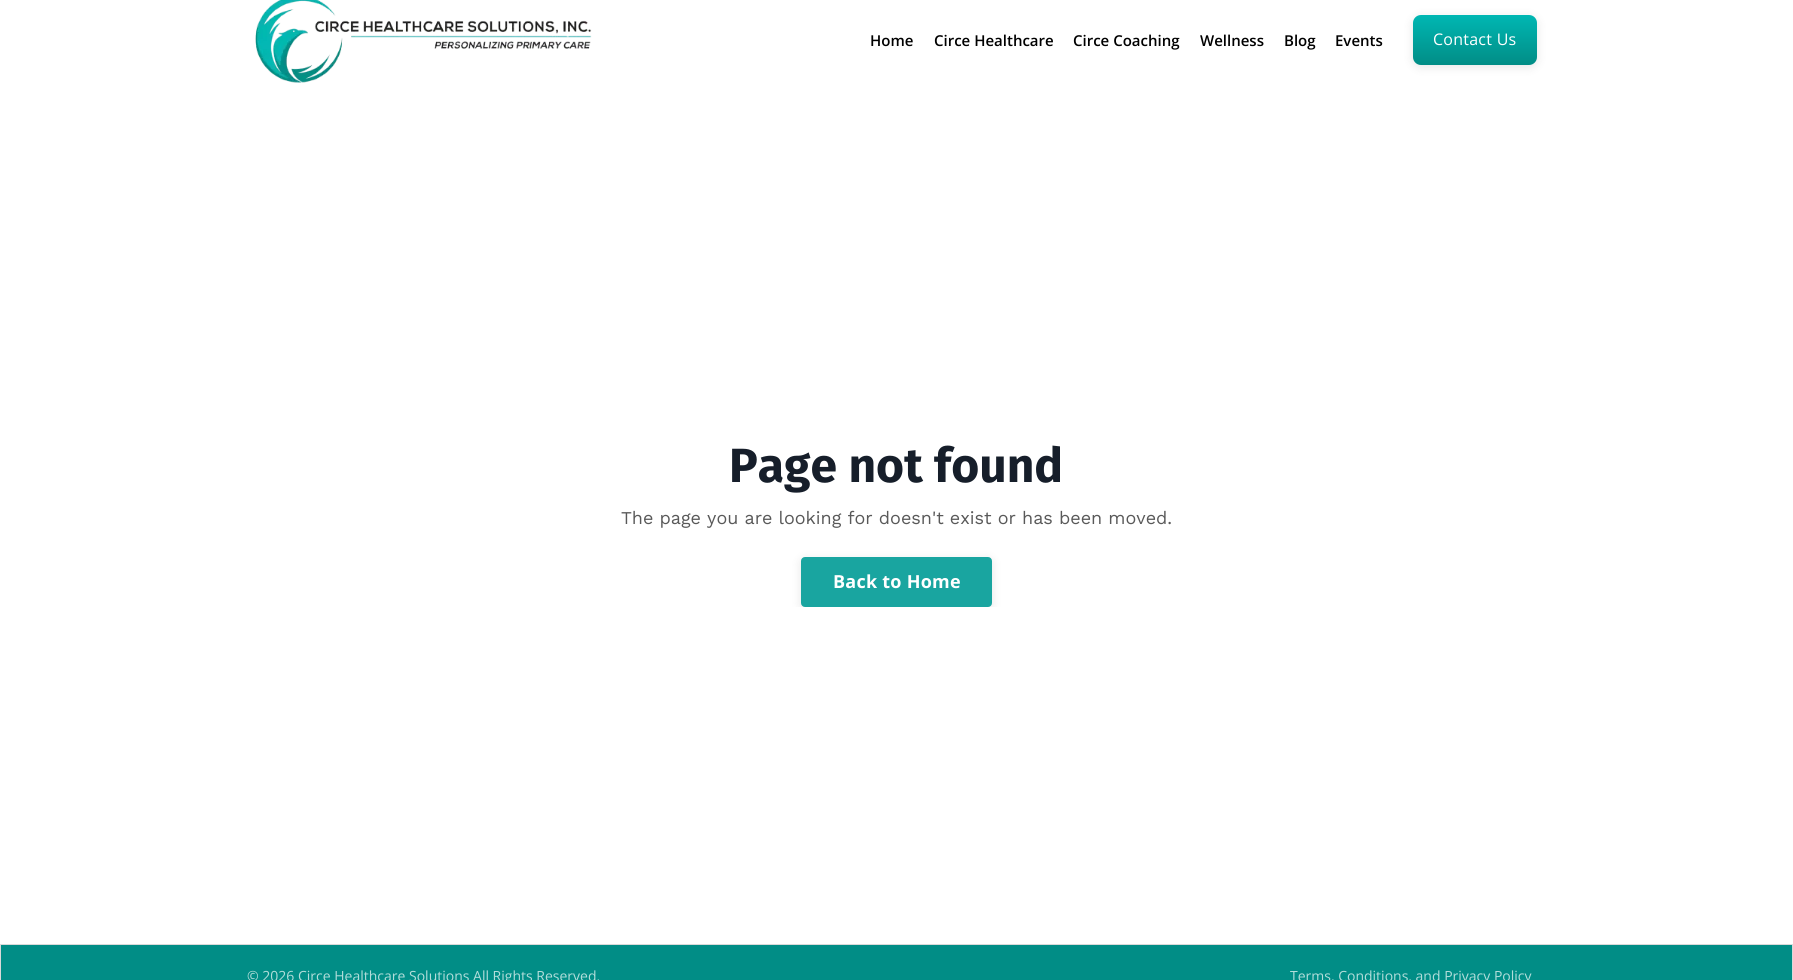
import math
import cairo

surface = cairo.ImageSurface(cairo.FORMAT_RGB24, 1793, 980)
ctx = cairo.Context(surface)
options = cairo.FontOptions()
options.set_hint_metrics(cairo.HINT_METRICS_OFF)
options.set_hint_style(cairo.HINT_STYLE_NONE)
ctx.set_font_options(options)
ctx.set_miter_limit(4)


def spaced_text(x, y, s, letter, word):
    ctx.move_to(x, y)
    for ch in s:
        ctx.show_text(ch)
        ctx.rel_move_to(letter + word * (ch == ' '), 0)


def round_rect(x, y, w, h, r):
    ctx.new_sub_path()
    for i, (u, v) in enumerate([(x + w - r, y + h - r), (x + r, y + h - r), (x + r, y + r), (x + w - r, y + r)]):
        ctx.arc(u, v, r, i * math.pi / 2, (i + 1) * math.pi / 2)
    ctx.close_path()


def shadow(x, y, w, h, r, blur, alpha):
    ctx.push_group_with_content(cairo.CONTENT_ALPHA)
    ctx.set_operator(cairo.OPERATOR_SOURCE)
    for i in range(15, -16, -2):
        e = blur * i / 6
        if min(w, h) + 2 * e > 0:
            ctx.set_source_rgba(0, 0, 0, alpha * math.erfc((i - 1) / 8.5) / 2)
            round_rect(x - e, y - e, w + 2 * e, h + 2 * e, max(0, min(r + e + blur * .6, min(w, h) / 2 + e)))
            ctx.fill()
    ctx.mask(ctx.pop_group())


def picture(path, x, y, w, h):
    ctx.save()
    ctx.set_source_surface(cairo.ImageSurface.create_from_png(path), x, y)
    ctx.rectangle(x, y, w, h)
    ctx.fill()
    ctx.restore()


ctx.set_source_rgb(1, 1, 1)
ctx.paint()
picture("img1.png", 255, 0, 337, 83)
ctx.select_font_face("Open Sans SemiBold")
ctx.set_font_size(15)
ctx.set_source_rgb(0, 0, 0)
ctx.move_to(870, 46)
ctx.show_text("Home")
ctx.move_to(934, 46)
ctx.show_text("Circe Healthcare")
ctx.move_to(1073, 46)
ctx.show_text("Circe Coaching")
ctx.move_to(1200, 46)
ctx.show_text("Wellness")
ctx.move_to(1284, 46)
ctx.show_text("Blog")
ctx.move_to(1335, 46)
ctx.show_text("Events")
ctx.set_source_rgb(0, 0, 0)
shadow(1413, 17, 124, 50, 8, 5, 0.1)
gradient = cairo.LinearGradient(1475, 15, 1475, 65)
gradient.add_color_stop_rgba(0, 0, 0.718, 0.702, 1)
gradient.add_color_stop_rgba(1, 0.004, 0.553, 0.525, 1)
ctx.set_source(gradient)
round_rect(1413, 15, 124, 50, 8)
ctx.fill()
ctx.select_font_face("Open Sans")
ctx.set_font_size(16)
ctx.set_source_rgb(1, 1, 1)
spaced_text(1433, 45, "Contact Us", 0.25, 0)
ctx.select_font_face("Fira Sans", cairo.FONT_SLANT_NORMAL, cairo.FONT_WEIGHT_BOLD)
ctx.set_font_size(48)
ctx.set_source_rgb(0.086, 0.118, 0.165)
ctx.move_to(729, 482)
ctx.show_text("Page not found")
ctx.select_font_face("Work Sans")
ctx.set_font_size(18)
ctx.set_source_rgb(0.349, 0.349, 0.349)
ctx.move_to(621, 524)
ctx.show_text("The page you are looking for doesn't exist or has been moved.")
ctx.save()
round_rect(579, 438, 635, 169, 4)
ctx.clip()
ctx.set_source_rgb(0, 0, 0)
shadow(801, 559, 191, 50, 4, 5, 0.1)
ctx.restore()
ctx.set_source_rgb(0.098, 0.647, 0.627)
round_rect(802, 558, 189, 48, 3)
ctx.fill_preserve()
ctx.stroke()
ctx.select_font_face("Open Sans", cairo.FONT_SLANT_NORMAL, cairo.FONT_WEIGHT_BOLD)
ctx.set_source_rgb(1, 1, 1)
spaced_text(833, 588, "Back to Home", 0.25, 0)
ctx.set_source_rgb(0.004, 0.553, 0.525)
ctx.rectangle(0.5, 944.5, 1792, 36)
ctx.fill_preserve()
ctx.set_source_rgb(0.851, 0.851, 0.851)
ctx.set_line_width(1)
ctx.stroke()
ctx.select_font_face("Open Sans")
ctx.set_font_size(14)
ctx.set_source_rgb(0.698, 0.867, 0.855)
ctx.move_to(247, 981)
ctx.show_text("© 2026 Circe Healthcare Solutions All Rights Reserved.")
ctx.move_to(1290, 981)
ctx.show_text("Terms, Conditions, and Privacy Policy")
surface.write_to_png("page.png")
